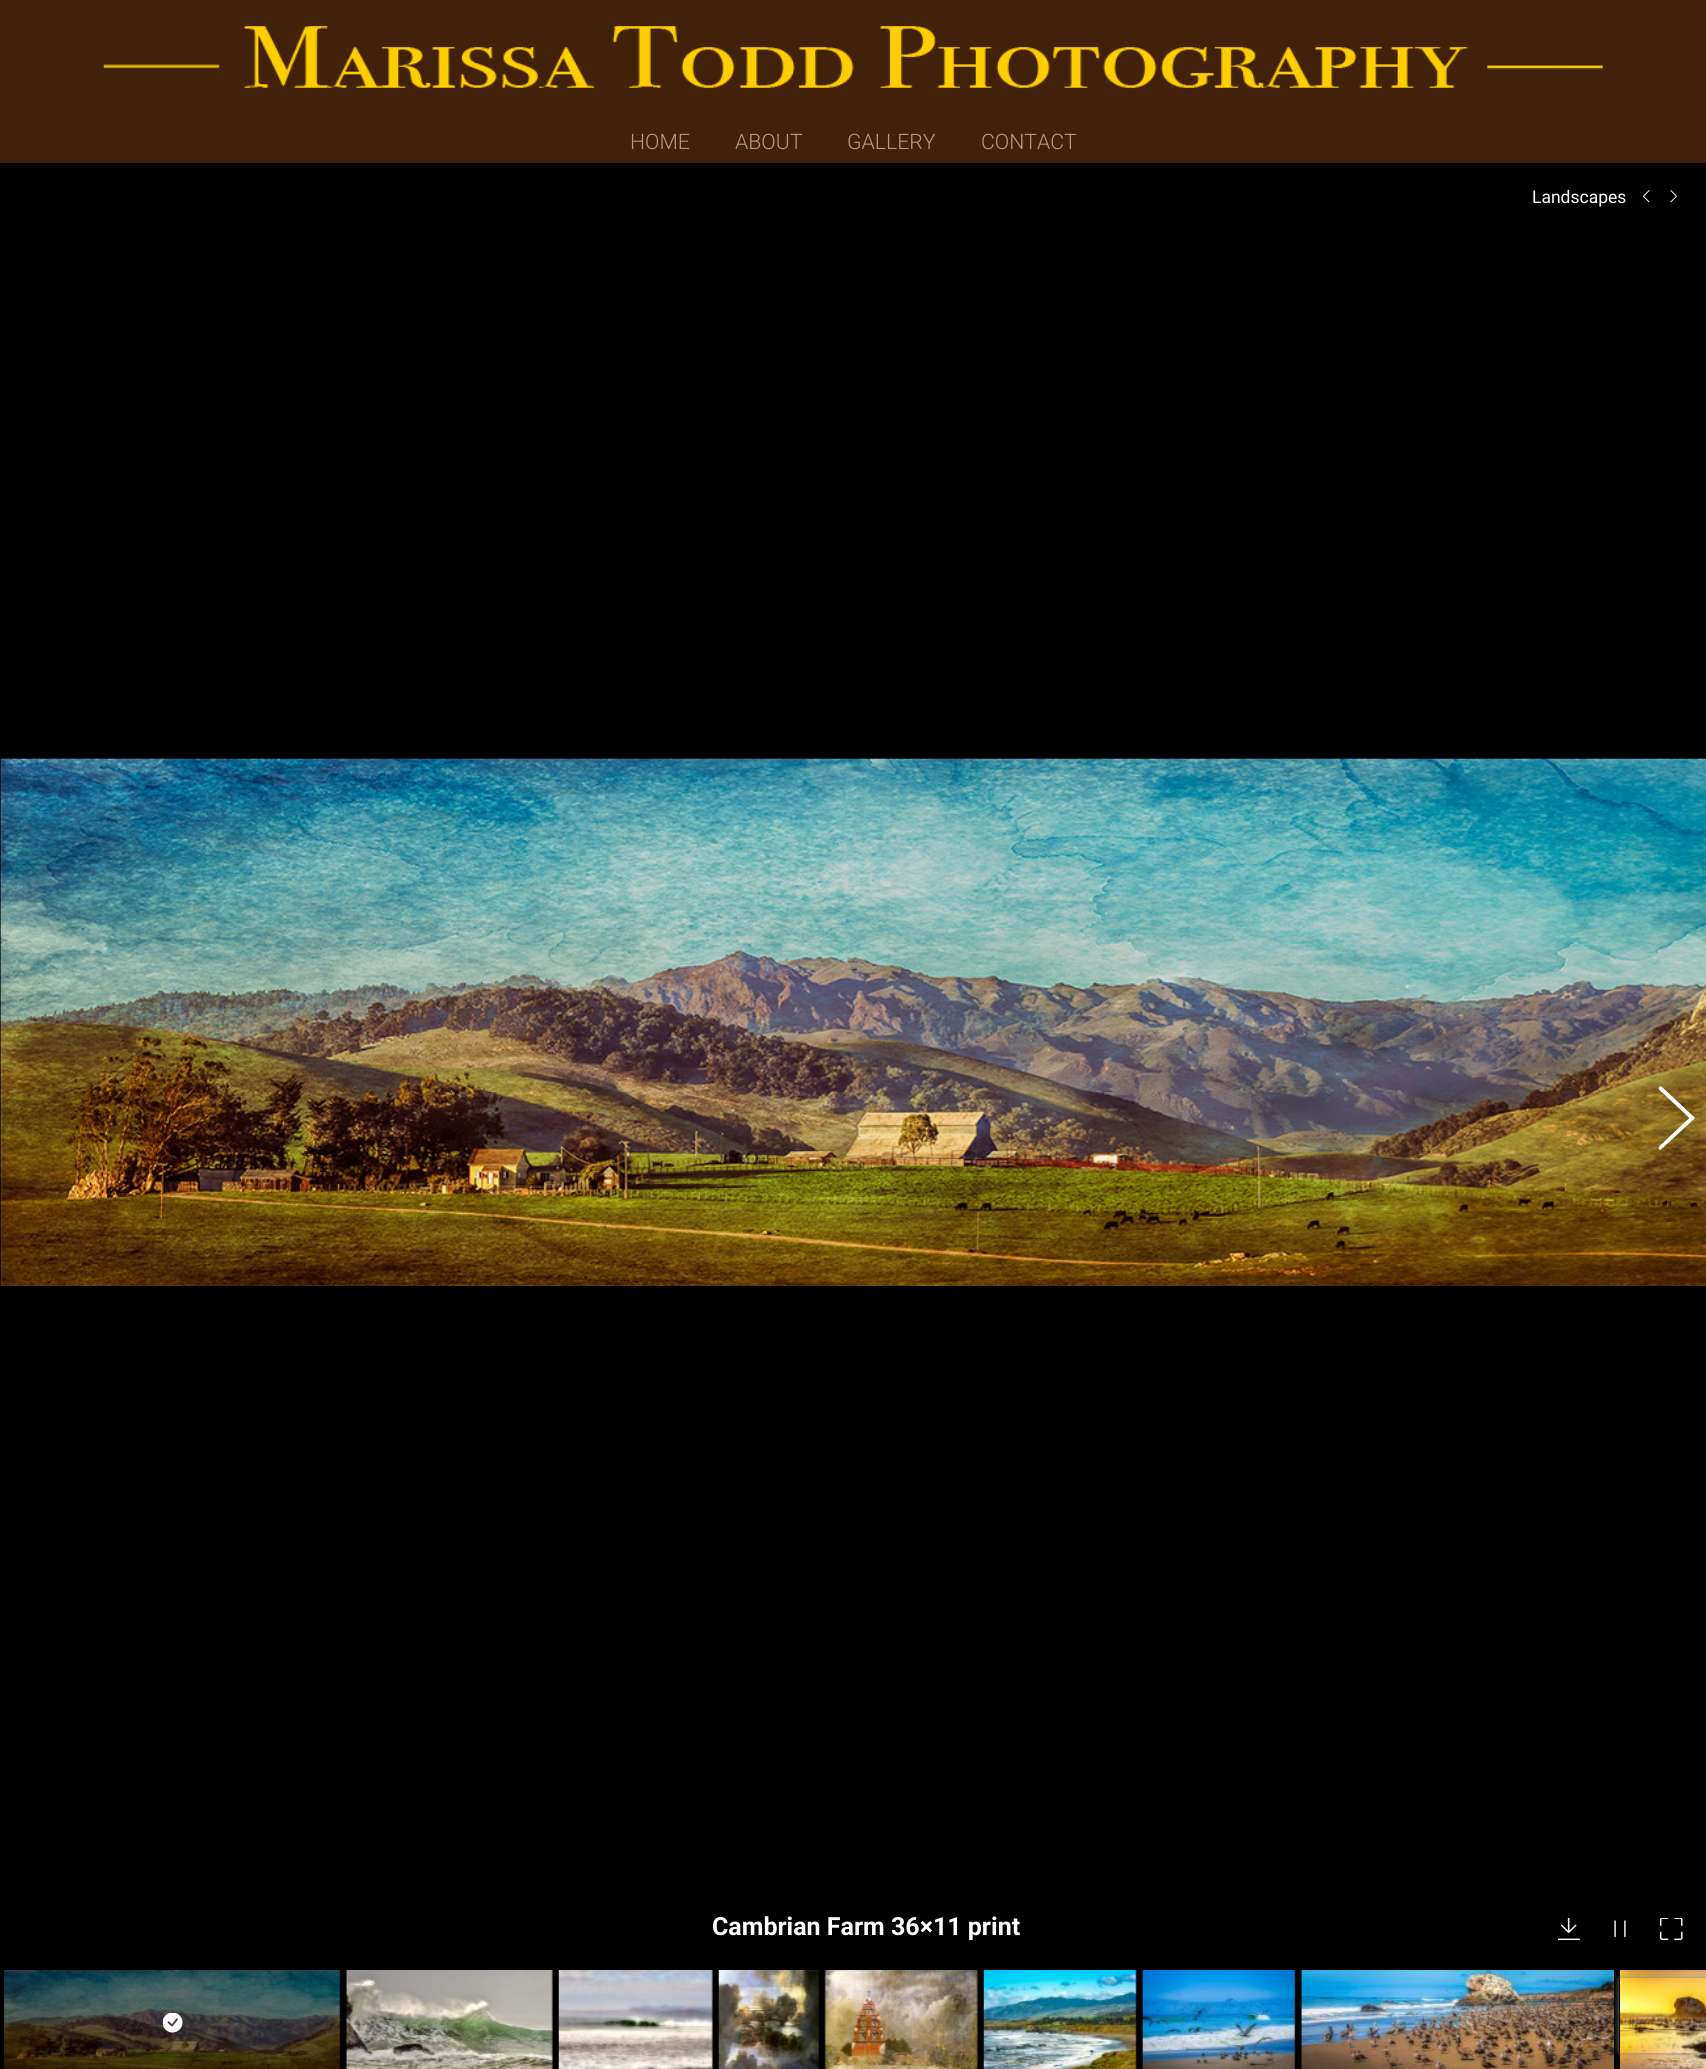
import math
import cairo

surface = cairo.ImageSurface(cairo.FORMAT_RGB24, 1706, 2069)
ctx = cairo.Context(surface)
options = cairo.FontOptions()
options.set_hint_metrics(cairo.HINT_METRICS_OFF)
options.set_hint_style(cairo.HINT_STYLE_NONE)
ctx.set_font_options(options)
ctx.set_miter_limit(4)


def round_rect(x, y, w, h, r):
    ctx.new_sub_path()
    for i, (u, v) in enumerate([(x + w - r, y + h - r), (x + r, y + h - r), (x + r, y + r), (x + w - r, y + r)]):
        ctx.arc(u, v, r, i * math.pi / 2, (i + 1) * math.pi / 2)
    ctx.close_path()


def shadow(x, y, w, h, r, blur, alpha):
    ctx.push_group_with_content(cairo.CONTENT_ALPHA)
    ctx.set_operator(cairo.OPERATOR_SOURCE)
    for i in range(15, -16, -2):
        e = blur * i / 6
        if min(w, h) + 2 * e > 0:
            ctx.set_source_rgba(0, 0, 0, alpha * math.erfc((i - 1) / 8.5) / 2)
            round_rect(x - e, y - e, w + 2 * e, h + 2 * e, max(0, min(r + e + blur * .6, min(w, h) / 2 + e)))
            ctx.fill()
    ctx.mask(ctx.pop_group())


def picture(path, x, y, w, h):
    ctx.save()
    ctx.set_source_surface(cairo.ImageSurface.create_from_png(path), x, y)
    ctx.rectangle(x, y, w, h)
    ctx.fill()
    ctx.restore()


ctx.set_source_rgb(0, 0, 0)
ctx.paint()
ctx.set_source_rgb(0.259, 0.129, 0.043)
ctx.rectangle(0, 0, 1706, 163)
ctx.fill()
picture("img1.png", 103, 26, 1500, 62)
ctx.select_font_face("Roboto Light")
ctx.set_font_size(21.25)
ctx.set_source_rgb(0.694, 0.612, 0.514)
ctx.move_to(630, 149)
ctx.show_text("HOME")
ctx.move_to(735, 149)
ctx.show_text("ABOUT")
ctx.move_to(847, 149)
ctx.show_text("GALLERY")
ctx.move_to(981, 149)
ctx.show_text("CONTACT")
ctx.select_font_face("Roboto")
ctx.set_font_size(17.5)
ctx.set_source_rgb(1, 1, 1)
ctx.move_to(1532, 203)
ctx.show_text("Landscapes")
picture("img2.png", 1643, 190, 7, 13)
picture("img3.png", 1670, 190, 7, 13)
picture("img4.png", 0, 758, 1706, 528)
picture("img5.png", 1, 759, 1705, 527)
ctx.set_source_rgb(0, 0, 0)
shadow(1653, 1101, 47, 4, 2, 3, 0.3)
ctx.set_source_rgb(1, 1, 1)
ctx.new_path()
ctx.move_to(1661.5, 1086.5)
ctx.line_to(1693.5, 1116.5)
ctx.curve_to(1694.5, 1117, 1694.5, 1118.5, 1694, 1119)
ctx.curve_to(1693, 1120, 1692, 1120, 1691, 1119.5)
ctx.line_to(1659, 1089.5)
ctx.curve_to(1658.5, 1088.5, 1658.5, 1087.5, 1659, 1087)
ctx.curve_to(1659.5, 1086, 1661, 1086, 1661.5, 1086.5)
ctx.close_path()
ctx.fill()
ctx.set_source_rgb(0, 0, 0)
shadow(1653, 1131, 47, 4, 2, 3, 0.3)
ctx.set_source_rgb(1, 1, 1)
ctx.new_path()
ctx.move_to(1659, 1146.5)
ctx.line_to(1691, 1116.5)
ctx.curve_to(1692, 1116, 1693, 1116, 1694, 1116.5)
ctx.curve_to(1694.5, 1117.5, 1694.5, 1118.5, 1693.5, 1119.5)
ctx.line_to(1661.5, 1149)
ctx.curve_to(1661, 1150, 1659.5, 1150, 1659, 1149)
ctx.curve_to(1658.5, 1148.5, 1658.5, 1147, 1659, 1146.5)
ctx.close_path()
ctx.fill()
ctx.select_font_face("Roboto", cairo.FONT_SLANT_NORMAL, cairo.FONT_WEIGHT_BOLD)
ctx.set_font_size(25)
ctx.move_to(712, 1935)
ctx.show_text("Cambrian Farm 36×11 print")
picture("img6.png", 1558, 1918, 22, 22)
picture("img7.png", 1614, 1920, 12, 18)
picture("img8.png", 1660, 1918, 23, 22)
picture("img9.png", 4, 1970, 337, 99)
picture("img10.png", 163, 2013, 20, 20)
picture("img11.png", 345, 1970, 208, 99)
picture("img12.png", 558, 1970, 155, 99)
picture("img13.png", 718, 1970, 101, 99)
picture("img14.png", 824, 1970, 154, 99)
picture("img15.png", 983, 1970, 154, 99)
picture("img16.png", 1142, 1970, 154, 99)
picture("img17.png", 1300, 1970, 314, 99)
picture("img18.png", 1620, 1970, 86, 99)
ctx.save()
ctx.set_fill_rule(cairo.FILL_RULE_EVEN_ODD)
ctx.new_path()
ctx.move_to(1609, 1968)
ctx.line_to(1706, 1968)
ctx.line_to(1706, 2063)
ctx.line_to(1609, 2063)
ctx.close_path()
ctx.move_to(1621.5, 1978)
ctx.line_to(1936.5, 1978)
ctx.curve_to(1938, 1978, 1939, 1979, 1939, 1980.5)
ctx.line_to(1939, 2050.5)
ctx.curve_to(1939, 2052, 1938, 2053, 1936.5, 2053)
ctx.line_to(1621.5, 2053)
ctx.curve_to(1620, 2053, 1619, 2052, 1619, 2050.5)
ctx.line_to(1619, 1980.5)
ctx.curve_to(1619, 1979, 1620, 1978, 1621.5, 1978)
ctx.close_path()
ctx.clip()
ctx.set_source_rgb(0.502, 0.502, 0.502)
shadow(1619, 1978, 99, 75, 2.5, 3, 1)
ctx.restore()
surface.write_to_png("page.png")
